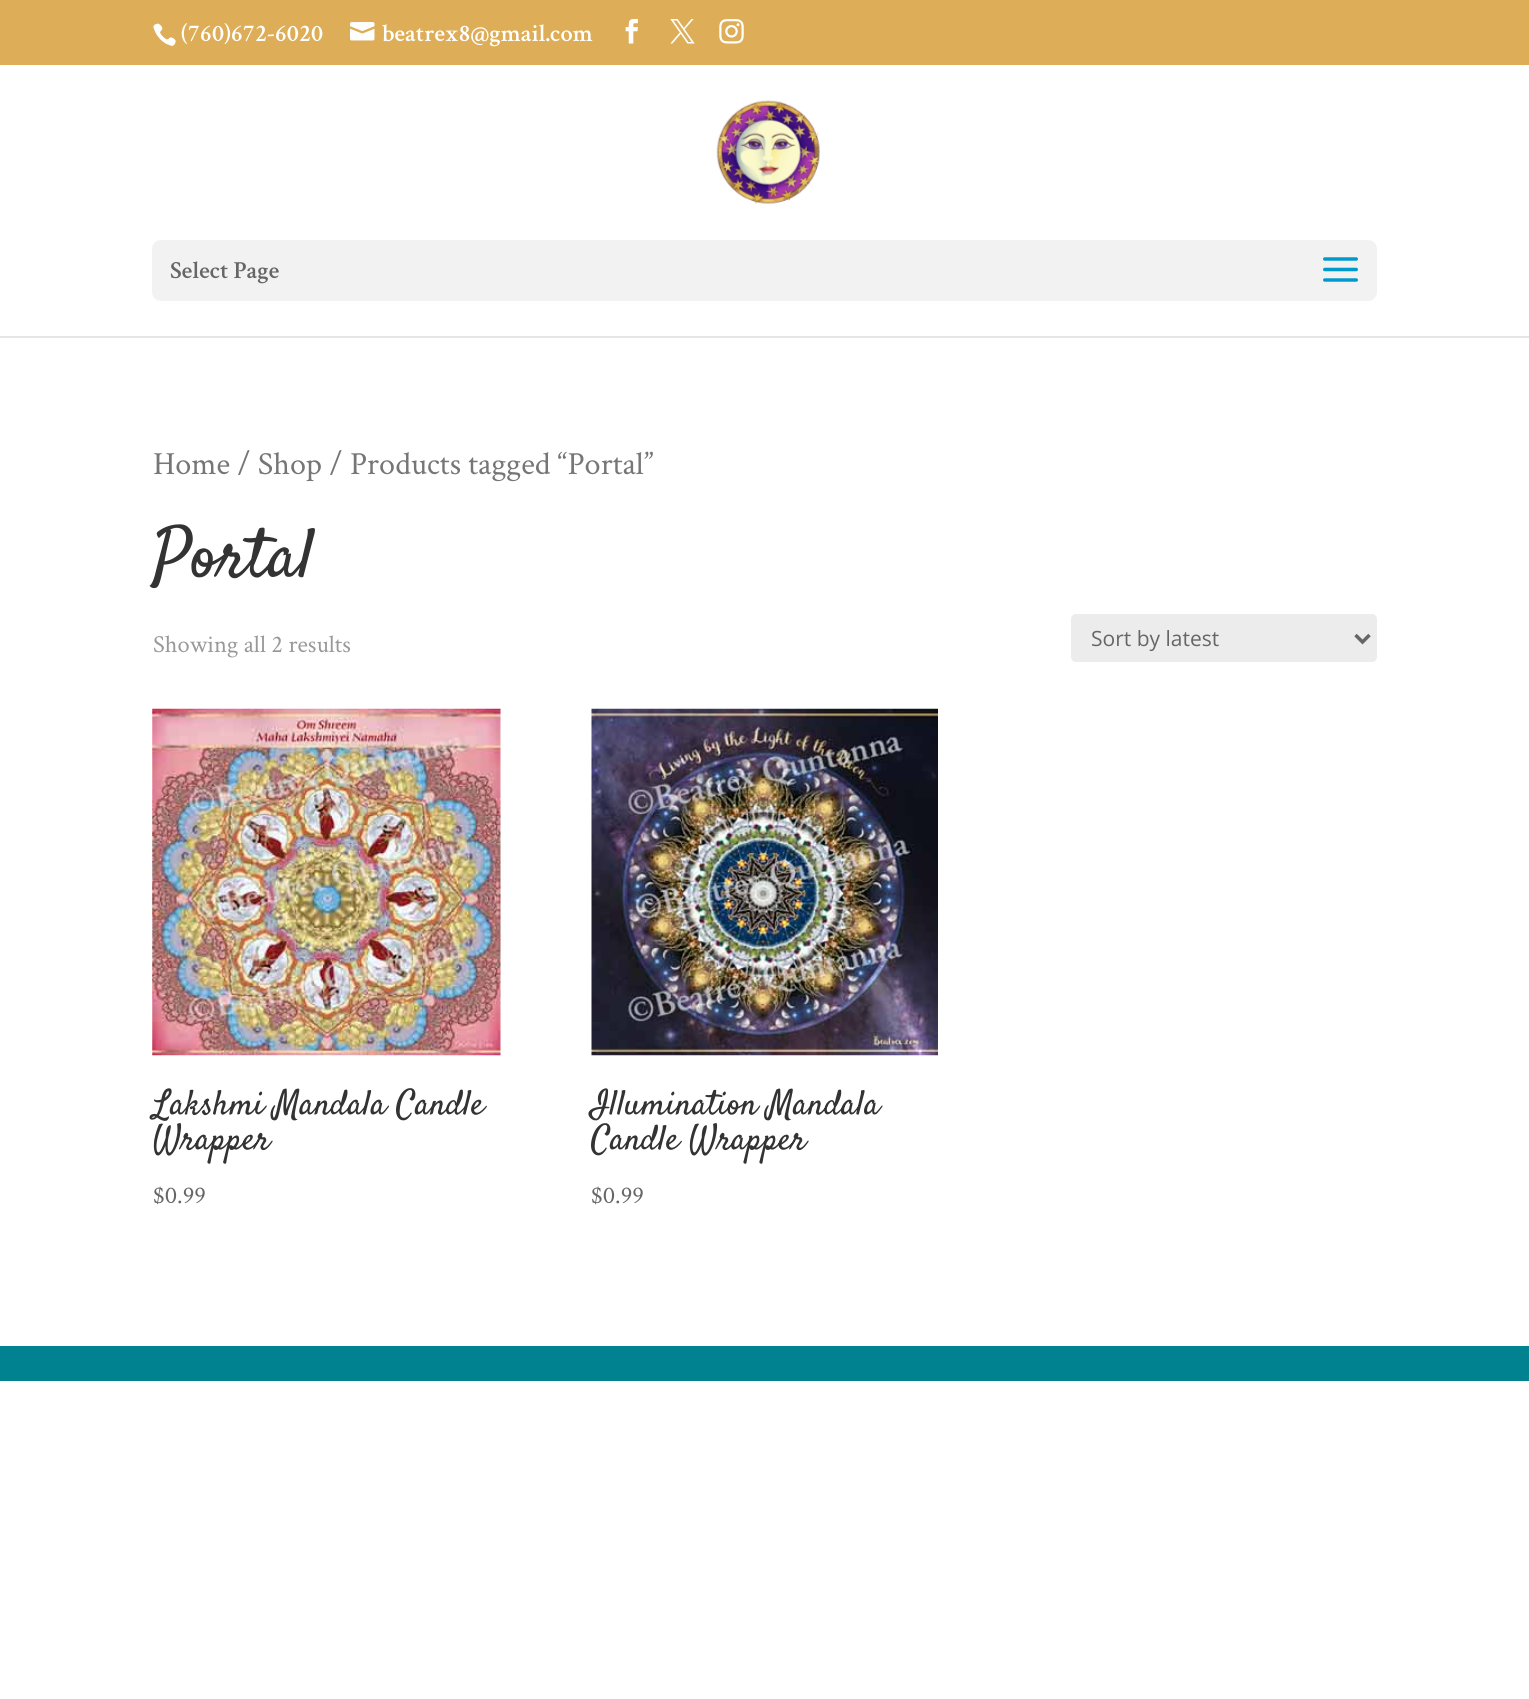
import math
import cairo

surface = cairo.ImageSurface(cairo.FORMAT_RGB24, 1529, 1699)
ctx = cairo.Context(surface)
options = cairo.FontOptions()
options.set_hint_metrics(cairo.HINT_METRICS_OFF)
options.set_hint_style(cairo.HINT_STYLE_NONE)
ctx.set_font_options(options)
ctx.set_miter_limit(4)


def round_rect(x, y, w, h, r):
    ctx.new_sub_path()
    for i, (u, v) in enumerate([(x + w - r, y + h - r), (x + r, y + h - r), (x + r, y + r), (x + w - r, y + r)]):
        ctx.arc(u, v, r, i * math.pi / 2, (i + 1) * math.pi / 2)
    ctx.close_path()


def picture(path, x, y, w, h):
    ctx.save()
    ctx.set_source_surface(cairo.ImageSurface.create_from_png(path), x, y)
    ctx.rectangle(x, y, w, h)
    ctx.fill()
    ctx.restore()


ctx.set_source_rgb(1, 1, 1)
ctx.paint()
ctx.set_source_rgb(0.867, 0.678, 0.345)
ctx.rectangle(0, 0, 1529, 65)
ctx.fill()
picture("img1.png", 153, 23, 23, 23)
ctx.select_font_face("Crimson Text SemiBold")
ctx.set_font_size(24.5)
ctx.set_source_rgb(1, 1, 1)
ctx.move_to(181, 41)
ctx.show_text("(760)672-6020")
picture("img2.png", 350, 22, 25, 19)
ctx.move_to(382, 41)
ctx.show_text("beatrex8@gmail.com")
picture("img3.png", 625, 19, 13, 25)
picture("img4.png", 670, 19, 25, 25)
picture("img5.png", 719, 19, 25, 25)
ctx.set_source_rgb(0.902, 0.902, 0.902)
ctx.new_path()
ctx.move_to(0, 336)
ctx.line_to(0, 338)
ctx.line_to(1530, 338)
ctx.line_to(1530, 67)
ctx.line_to(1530, 336)
ctx.close_path()
ctx.fill()
picture("img6.png", 716, 100, 104, 104)
ctx.set_source_rgb(0.949, 0.949, 0.949)
round_rect(152, 240, 1225, 61, 9)
ctx.fill()
ctx.set_source_rgb(0.4, 0.4, 0.4)
ctx.move_to(170, 278)
ctx.show_text("Select Page")
picture("img7.png", 1323, 257, 35, 25)
ctx.select_font_face("Crimson Text")
ctx.set_font_size(32.25)
ctx.set_source_rgb(0.463, 0.463, 0.463)
ctx.move_to(153, 474)
ctx.show_text("Home / Shop / Products tagged “Portal”")
ctx.select_font_face("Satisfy")
ctx.set_font_size(70)
ctx.set_source_rgb(0.2, 0.2, 0.2)
ctx.move_to(153, 576)
ctx.show_text("Portal")
ctx.select_font_face("Crimson Text")
ctx.set_font_size(24.5)
ctx.set_source_rgb(0.6, 0.6, 0.6)
ctx.move_to(153, 652)
ctx.show_text("Showing all 2 results")
ctx.set_source_rgb(0.925, 0.925, 0.925)
round_rect(1071, 614, 306, 48, 5)
ctx.fill()
ctx.new_path()
ctx.move_to(1355.5, 635)
ctx.line_to(1362.5, 642)
ctx.line_to(1369.5, 635)
ctx.set_source_rgb(0.4, 0.4, 0.4)
ctx.set_line_width(3.5)
ctx.stroke()
ctx.select_font_face("Open Sans")
ctx.set_font_size(21)
ctx.move_to(1091, 646)
ctx.show_text("Sort by latest")
picture("img8.png", 152, 708, 349, 348)
ctx.select_font_face("Satisfy")
ctx.set_font_size(35)
ctx.set_source_rgb(0.2, 0.2, 0.2)
ctx.move_to(153, 1114)
ctx.show_text("Lakshmi Mandala Candle")
ctx.move_to(153, 1149)
ctx.show_text("Wrapper")
ctx.select_font_face("Crimson Text")
ctx.set_font_size(24.5)
ctx.set_source_rgb(0.4, 0.4, 0.4)
ctx.move_to(153, 1203)
ctx.show_text("$0.99")
picture("img9.png", 591, 708, 347, 348)
ctx.select_font_face("Satisfy")
ctx.set_font_size(35)
ctx.set_source_rgb(0.2, 0.2, 0.2)
ctx.move_to(591, 1114)
ctx.show_text("Illumination Mandala")
ctx.move_to(591, 1149)
ctx.show_text("Candle Wrapper")
ctx.select_font_face("Crimson Text")
ctx.set_font_size(24.5)
ctx.set_source_rgb(0.4, 0.4, 0.4)
ctx.move_to(591, 1203)
ctx.show_text("$0.99")
ctx.set_source_rgb(0, 0.51, 0.569)
ctx.rectangle(0, 1346, 1529, 35)
ctx.fill()
surface.write_to_png("page.png")
